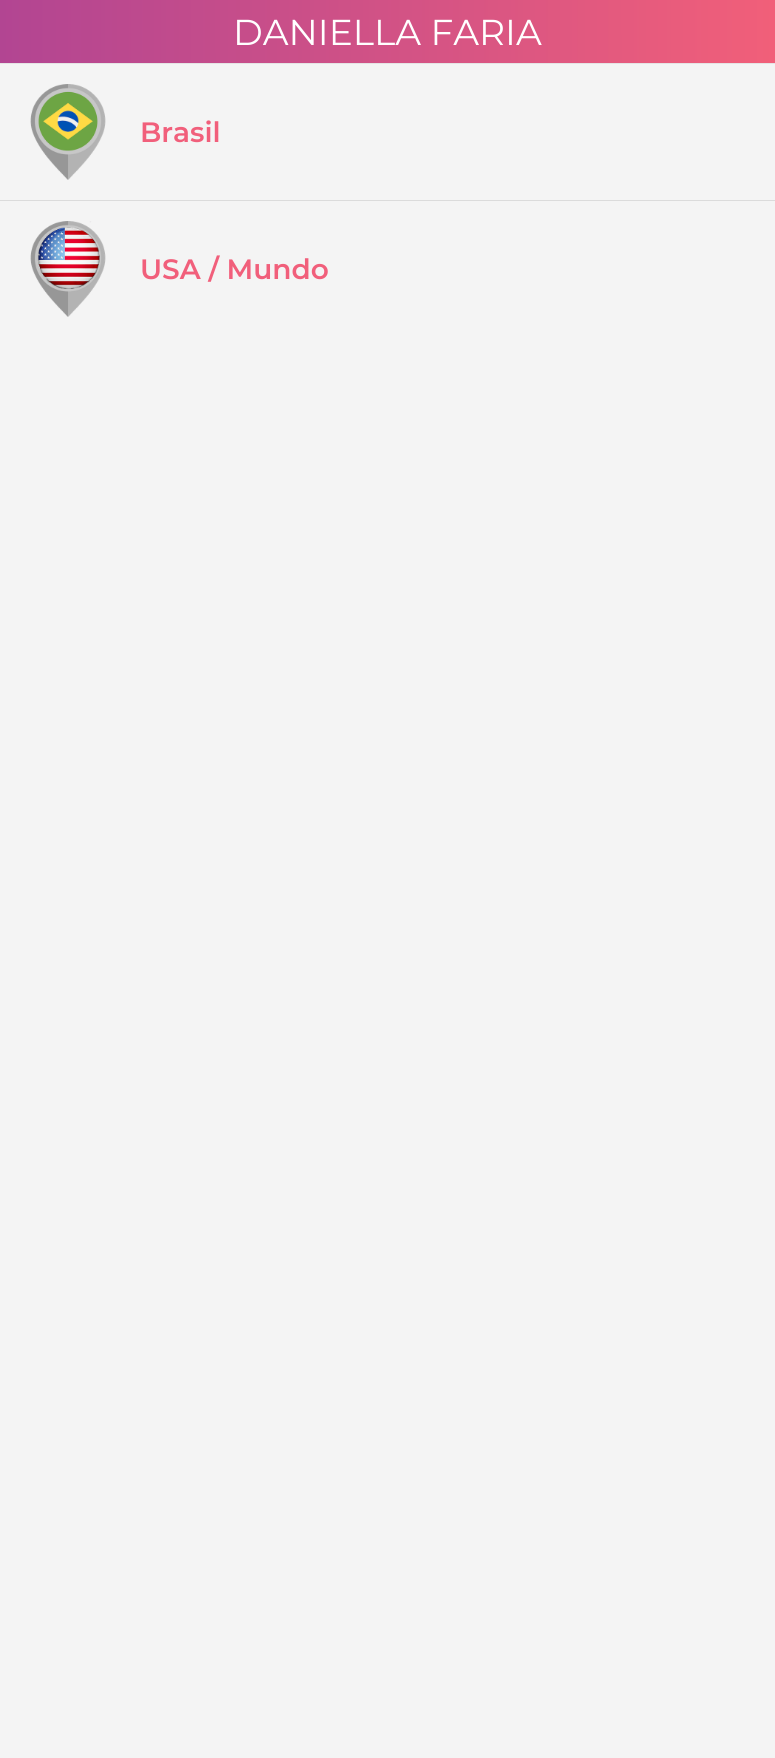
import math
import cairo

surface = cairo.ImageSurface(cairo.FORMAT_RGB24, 775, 1758)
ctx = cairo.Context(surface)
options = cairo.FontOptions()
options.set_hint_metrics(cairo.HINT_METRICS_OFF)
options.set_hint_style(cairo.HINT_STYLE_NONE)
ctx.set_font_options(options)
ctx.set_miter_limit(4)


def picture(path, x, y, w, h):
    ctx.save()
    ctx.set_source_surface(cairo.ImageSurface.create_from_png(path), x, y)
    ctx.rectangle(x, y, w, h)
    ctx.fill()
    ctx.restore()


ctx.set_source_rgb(0.957, 0.957, 0.957)
ctx.paint()
gradient = cairo.LinearGradient(0, 32, 775, 31)
gradient.add_color_stop_rgba(0, 0.698, 0.271, 0.573, 1)
gradient.add_color_stop_rgba(1, 0.945, 0.373, 0.475, 1)
ctx.set_source(gradient)
ctx.rectangle(0, 0, 775, 63)
ctx.fill()
ctx.set_source_rgb(0.894, 0.894, 0.894)
ctx.rectangle(0, 63, 775, 1)
ctx.fill()
ctx.select_font_face("Montserrat")
ctx.set_font_size(36)
ctx.set_source_rgb(1, 1, 1)
ctx.move_to(233, 45)
ctx.show_text("DANIELLA FARIA")
ctx.set_source_rgb(0.859, 0.859, 0.859)
ctx.rectangle(0, 200, 775, 1)
ctx.fill()
picture("img1.png", 30, 84, 76, 96)
ctx.select_font_face("Montserrat SemiBold")
ctx.set_font_size(28)
ctx.set_source_rgb(0.945, 0.373, 0.482)
ctx.move_to(140, 142)
ctx.show_text("Brasil")
picture("img2.png", 30, 221, 76, 96)
ctx.move_to(140, 279)
ctx.show_text("USA / Mundo")
surface.write_to_png("page.png")
